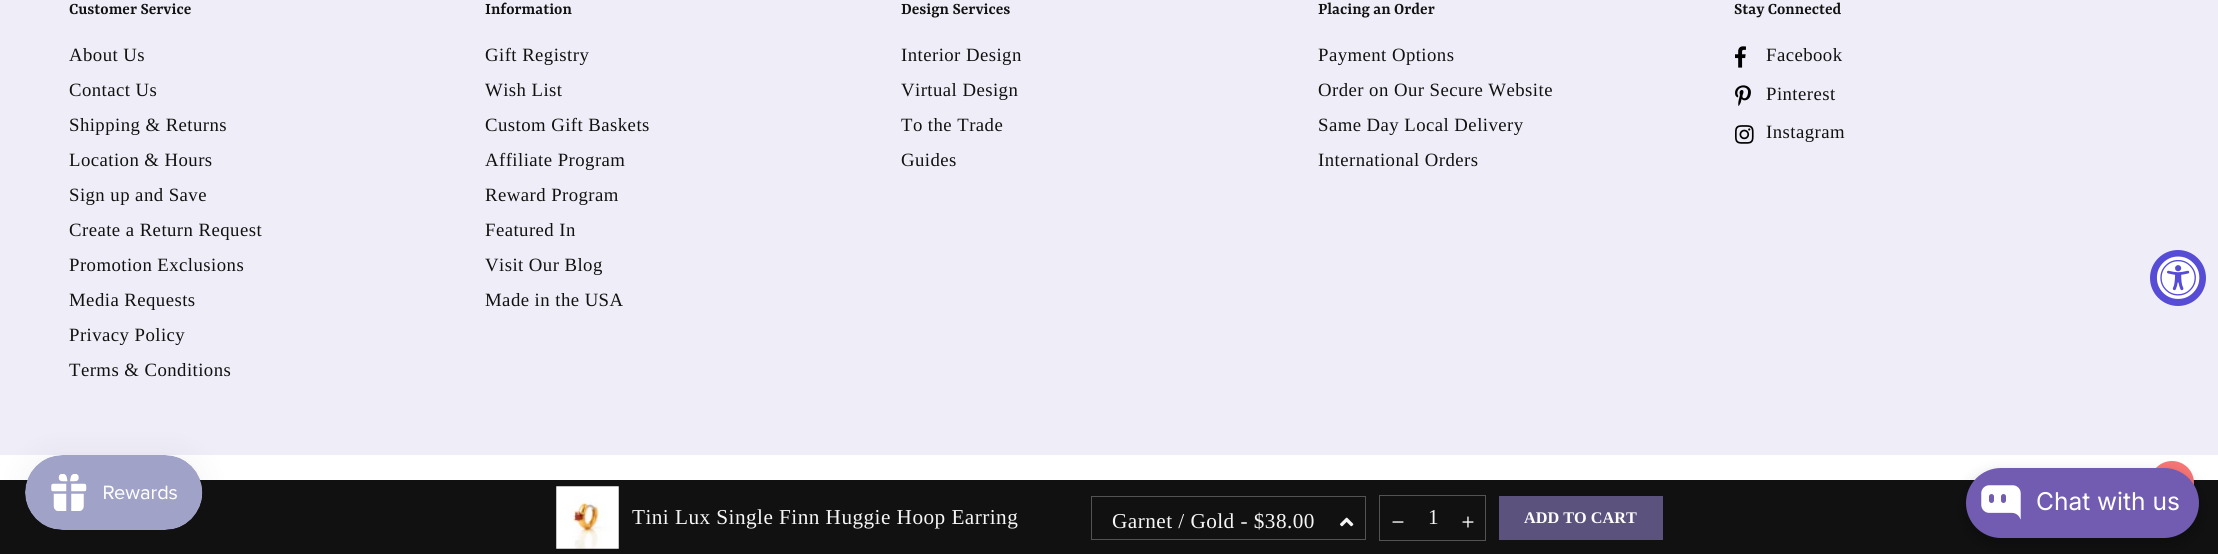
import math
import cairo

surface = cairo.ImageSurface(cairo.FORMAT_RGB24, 2218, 554)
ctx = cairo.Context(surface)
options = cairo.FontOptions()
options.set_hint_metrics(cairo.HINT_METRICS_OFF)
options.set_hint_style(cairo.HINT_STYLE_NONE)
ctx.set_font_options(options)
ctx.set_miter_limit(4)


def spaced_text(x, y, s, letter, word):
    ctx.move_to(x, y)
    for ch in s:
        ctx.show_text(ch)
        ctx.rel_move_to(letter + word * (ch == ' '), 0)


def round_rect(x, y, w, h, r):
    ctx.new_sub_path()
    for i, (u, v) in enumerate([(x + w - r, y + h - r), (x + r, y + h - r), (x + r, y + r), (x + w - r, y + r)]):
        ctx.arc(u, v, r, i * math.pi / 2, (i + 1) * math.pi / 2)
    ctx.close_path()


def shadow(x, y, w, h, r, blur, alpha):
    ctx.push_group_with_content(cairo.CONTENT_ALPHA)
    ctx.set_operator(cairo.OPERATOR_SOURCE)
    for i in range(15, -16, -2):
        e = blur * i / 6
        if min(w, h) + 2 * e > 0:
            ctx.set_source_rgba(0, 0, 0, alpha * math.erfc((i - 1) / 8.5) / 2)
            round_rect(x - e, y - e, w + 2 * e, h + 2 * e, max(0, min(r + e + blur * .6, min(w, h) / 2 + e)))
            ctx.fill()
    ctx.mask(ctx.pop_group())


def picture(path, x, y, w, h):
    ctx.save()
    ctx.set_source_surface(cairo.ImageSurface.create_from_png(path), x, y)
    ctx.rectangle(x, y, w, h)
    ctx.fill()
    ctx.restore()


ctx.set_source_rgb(0.937, 0.929, 0.965)
ctx.paint()
ctx.select_font_face("Yrsa SemiBold")
ctx.set_font_size(17.5)
ctx.set_source_rgb(0.067, 0.067, 0.067)
ctx.move_to(69, 14)
ctx.show_text("Customer Service")
ctx.select_font_face("Liberation Serif")
ctx.set_font_size(18.75)
spaced_text(69, 61, "About Us", 0.45, 0)
spaced_text(69, 96, "Contact Us", 0.45, 0)
spaced_text(69, 131, "Shipping & Returns", 0.45, 0)
spaced_text(69, 166, "Location & Hours", 0.45, 0)
spaced_text(69, 201, "Sign up and Save", 0.45, 0)
spaced_text(69, 236, "Create a Return Request", 0.45, 0)
spaced_text(69, 271, "Promotion Exclusions", 0.45, 0)
spaced_text(69, 306, "Media Requests", 0.45, 0)
spaced_text(69, 341, "Privacy Policy", 0.45, 0)
spaced_text(69, 376, "Terms & Conditions", 0.45, 0)
ctx.select_font_face("Yrsa SemiBold")
ctx.set_font_size(17.5)
ctx.move_to(485, 14)
ctx.show_text("Information")
ctx.select_font_face("Liberation Serif")
ctx.set_font_size(18.75)
spaced_text(485, 61, "Gift Registry", 0.45, 0)
spaced_text(485, 96, "Wish List", 0.45, 0)
spaced_text(485, 131, "Custom Gift Baskets", 0.45, 0)
spaced_text(485, 166, "Affiliate Program", 0.45, 0)
spaced_text(485, 201, "Reward Program", 0.45, 0)
spaced_text(485, 236, "Featured In", 0.45, 0)
spaced_text(485, 271, "Visit Our Blog", 0.45, 0)
spaced_text(485, 306, "Made in the USA", 0.45, 0)
ctx.select_font_face("Yrsa SemiBold")
ctx.set_font_size(17.5)
ctx.move_to(901, 14)
ctx.show_text("Design Services")
ctx.select_font_face("Liberation Serif")
ctx.set_font_size(18.75)
spaced_text(901, 61, "Interior Design", 0.45, 0)
spaced_text(901, 96, "Virtual Design", 0.45, 0)
spaced_text(901, 131, "To the Trade", 0.45, 0)
spaced_text(901, 166, "Guides", 0.45, 0)
ctx.select_font_face("Yrsa SemiBold")
ctx.set_font_size(17.5)
ctx.move_to(1318, 14)
ctx.show_text("Placing an Order")
ctx.select_font_face("Liberation Serif")
ctx.set_font_size(18.75)
spaced_text(1318, 61, "Payment Options", 0.45, 0)
spaced_text(1318, 96, "Order on Our Secure Website", 0.45, 0)
spaced_text(1318, 131, "Same Day Local Delivery", 0.45, 0)
spaced_text(1318, 166, "International Orders", 0.45, 0)
ctx.select_font_face("Yrsa SemiBold")
ctx.set_font_size(17.5)
ctx.move_to(1734, 14)
ctx.show_text("Stay Connected")
picture("img1.png", 1735, 46, 11, 22)
ctx.select_font_face("Liberation Serif")
ctx.set_font_size(18.75)
spaced_text(1766, 61, "Facebook", 0.45, 0)
picture("img2.png", 1735, 85, 16, 21)
spaced_text(1766, 100, "Pinterest", 0.45, 0)
picture("img3.png", 1735, 125, 19, 19)
spaced_text(1766, 138, "Instagram", 0.45, 0)
ctx.set_source_rgb(1, 1, 1)
ctx.rectangle(0, 455, 2218, 25)
ctx.fill()
ctx.set_source_rgb(0.341, 0.298, 0.835)
ctx.arc(2178, 278, 28, 0, 2 * math.pi)
ctx.fill()
picture("img4.png", 2156, 256, 44, 43)
ctx.set_source_rgb(0.067, 0.067, 0.067)
ctx.rectangle(0, 480, 2218, 74)
ctx.fill()
ctx.set_source_rgb(0, 0, 0)
shadow(25, 455, 178, 75, 37.5, 15.5, 0.05)
picture("img5.png", 25, 455, 178, 75)
ctx.set_source_rgb(0.969, 0.459, 0.459)
ctx.arc(2172, 483, 22, 0, 2 * math.pi)
ctx.fill()
ctx.set_source_rgb(0, 0, 0)
shadow(1966, 475, 233, 70, 35, 7.5, 0.25)
ctx.set_source_rgb(0.447, 0.361, 0.694)
round_rect(1966, 468, 233, 70, 35)
ctx.fill()
picture("img6.png", 1981, 485, 40, 35)
ctx.select_font_face("Inter")
ctx.set_font_size(24.5)
ctx.set_source_rgb(1, 1, 1)
ctx.move_to(2036, 510)
ctx.show_text("Chat with us")
picture("img7.png", 556, 486, 63, 63)
ctx.select_font_face("Liberation Serif")
ctx.set_font_size(21.25)
ctx.set_source_rgb(0.961, 0.961, 0.961)
spaced_text(632, 524, "Tini Lux Single Finn Huggie Hoop Earring", 0.45, 0)
ctx.rectangle(1091.5, 496.5, 274, 43)
ctx.set_source_rgb(0.325, 0.325, 0.325)
ctx.set_line_width(1)
ctx.stroke()
ctx.set_source_rgb(0.961, 0.961, 0.961)
spaced_text(1112, 528, "Garnet / Gold - $38.00", 0.45, 0)
picture("img8.png", 1340, 517, 14, 10)
ctx.rectangle(1379.5, 495.5, 106, 45)
ctx.set_source_rgb(0.325, 0.325, 0.325)
ctx.stroke()
picture("img9.png", 1392, 521, 12, 2)
ctx.set_source_rgb(0.961, 0.961, 0.961)
ctx.move_to(1428, 524)
ctx.show_text("1")
picture("img10.png", 1462, 516, 12, 12)
ctx.set_source_rgb(0.361, 0.322, 0.494)
ctx.rectangle(1499, 496, 164, 44)
ctx.fill()
ctx.select_font_face("Liberation Serif", cairo.FONT_SLANT_NORMAL, cairo.FONT_WEIGHT_BOLD)
ctx.set_font_size(16.25)
ctx.set_source_rgb(1, 1, 1)
ctx.move_to(1524, 523)
ctx.show_text("ADD TO CART")
surface.write_to_png("page.png")
